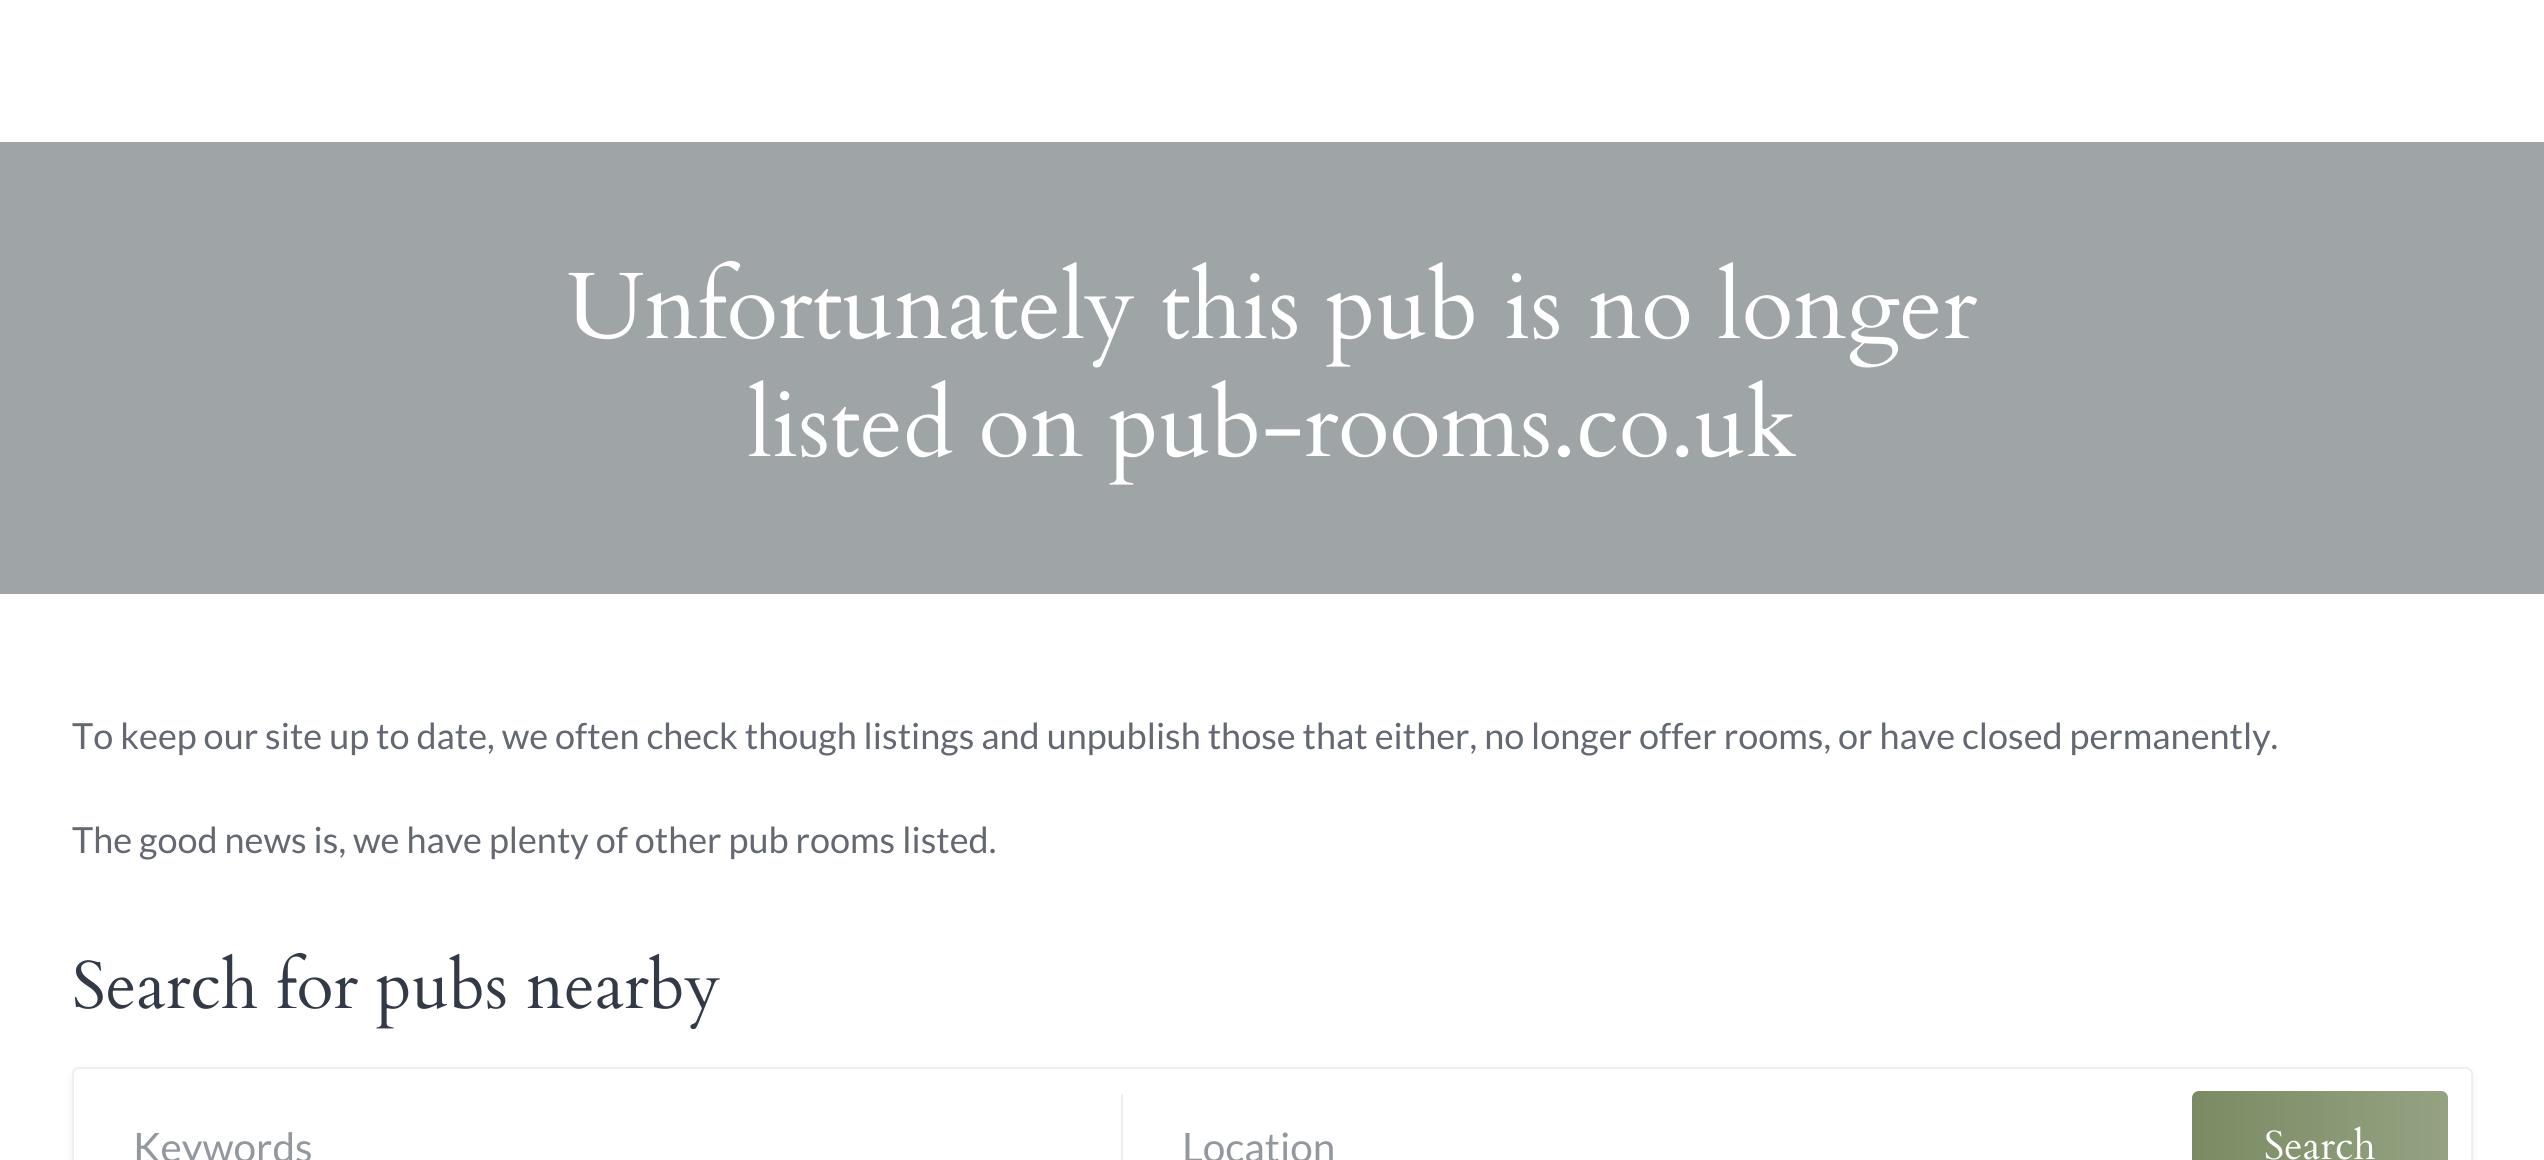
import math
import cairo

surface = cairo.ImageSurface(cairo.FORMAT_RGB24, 2544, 1160)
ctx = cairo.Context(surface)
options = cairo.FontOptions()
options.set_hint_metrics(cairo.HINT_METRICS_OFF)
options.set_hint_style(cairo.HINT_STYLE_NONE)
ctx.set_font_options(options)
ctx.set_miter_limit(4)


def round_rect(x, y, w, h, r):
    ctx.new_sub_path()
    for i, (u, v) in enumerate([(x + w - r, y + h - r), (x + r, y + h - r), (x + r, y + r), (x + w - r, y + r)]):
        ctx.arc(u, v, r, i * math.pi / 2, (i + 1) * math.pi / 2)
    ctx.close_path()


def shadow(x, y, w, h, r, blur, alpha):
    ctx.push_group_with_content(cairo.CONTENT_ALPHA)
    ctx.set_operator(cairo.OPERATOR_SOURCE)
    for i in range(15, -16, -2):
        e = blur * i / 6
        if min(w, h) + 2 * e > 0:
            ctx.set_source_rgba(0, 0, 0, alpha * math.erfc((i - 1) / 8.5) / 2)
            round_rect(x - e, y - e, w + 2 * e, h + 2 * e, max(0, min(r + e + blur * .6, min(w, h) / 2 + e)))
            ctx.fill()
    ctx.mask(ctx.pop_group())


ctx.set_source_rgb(1, 1, 1)
ctx.paint()
ctx.set_source_rgb(0.624, 0.643, 0.651)
ctx.rectangle(0, 142, 2544, 452)
ctx.fill()
ctx.select_font_face("Cardo")
ctx.set_font_size(94.5)
ctx.set_source_rgb(1, 1, 1)
ctx.move_to(567, 338)
ctx.show_text("Unfortunately this pub is no longer")
ctx.move_to(748, 456)
ctx.show_text("listed on pub-rooms.co.uk")
ctx.select_font_face("Lato")
ctx.set_font_size(36)
ctx.set_source_rgb(0.388, 0.408, 0.451)
ctx.move_to(72, 749)
ctx.show_text("To keep our site up to date, we often check though listings and unpublish those that either, no longer offer rooms, or have closed permanently.")
ctx.move_to(72, 853)
ctx.show_text("The good news is, we have plenty of other pub rooms listed.")
ctx.select_font_face("Cardo")
ctx.set_font_size(67.5)
ctx.set_source_rgb(0.2, 0.227, 0.278)
ctx.move_to(72, 1008)
ctx.show_text("Search for pubs nearby")
ctx.set_source_rgb(0.027, 0.141, 0.337)
shadow(72, 1071, 2401, 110, 7, 4.5, 0.07)
ctx.set_source_rgb(1, 1, 1)
round_rect(73, 1068, 2399, 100, 6)
ctx.fill_preserve()
ctx.set_source_rgb(0.925, 0.937, 0.949)
ctx.stroke()
ctx.rectangle(1121, 1094, 2, 66)
ctx.fill()
ctx.select_font_face("Lato")
ctx.set_font_size(40.5)
ctx.set_source_rgb(0.576, 0.592, 0.62)
ctx.move_to(133, 1162)
ctx.show_text("Keywords")
ctx.move_to(1182, 1162)
ctx.show_text("Location")
ctx.set_source_rgb(0.478, 0.545, 0.388)
round_rect(2192, 1091, 256, 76, 7)
ctx.fill()
gradient = cairo.LinearGradient(2192, 1148, 2448, 1148)
gradient.add_color_stop_rgba(0, 1, 1, 1, 0)
gradient.add_color_stop_rgba(1, 1, 1, 1, 0.2)
ctx.set_source(gradient)
round_rect(2192, 1091, 256, 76, 7)
ctx.fill()
ctx.select_font_face("Cardo")
ctx.set_source_rgb(1, 1, 1)
ctx.move_to(2264, 1159)
ctx.show_text("Search")
surface.write_to_png("page.png")
